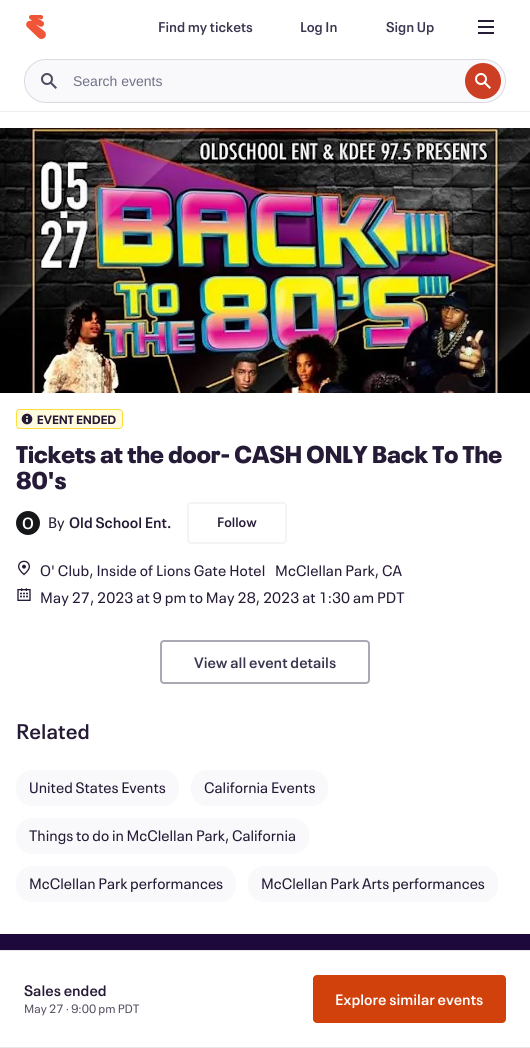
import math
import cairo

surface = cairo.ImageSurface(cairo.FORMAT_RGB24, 530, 1048)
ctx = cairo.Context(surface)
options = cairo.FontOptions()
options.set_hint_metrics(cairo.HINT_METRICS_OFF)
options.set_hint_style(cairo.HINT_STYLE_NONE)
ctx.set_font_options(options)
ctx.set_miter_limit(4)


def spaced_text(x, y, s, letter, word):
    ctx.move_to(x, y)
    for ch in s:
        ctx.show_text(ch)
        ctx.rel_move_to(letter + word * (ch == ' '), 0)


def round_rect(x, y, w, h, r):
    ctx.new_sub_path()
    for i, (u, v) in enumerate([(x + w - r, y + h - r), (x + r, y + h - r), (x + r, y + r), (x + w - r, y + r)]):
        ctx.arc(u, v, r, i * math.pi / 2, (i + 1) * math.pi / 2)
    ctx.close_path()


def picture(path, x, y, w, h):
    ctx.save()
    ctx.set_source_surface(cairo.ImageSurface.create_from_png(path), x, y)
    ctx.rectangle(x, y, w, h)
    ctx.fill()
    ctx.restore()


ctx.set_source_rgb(1, 1, 1)
ctx.paint()
ctx.set_source_rgb(0.933, 0.929, 0.949)
ctx.rectangle(0, 111, 530, 1)
ctx.fill()
picture("img1.png", 26, 15, 20, 24)
ctx.select_font_face("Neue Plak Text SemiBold")
ctx.set_font_size(14)
ctx.set_source_rgb(0.224, 0.212, 0.31)
ctx.move_to(158, 32)
ctx.show_text("Find my tickets")
ctx.move_to(300, 32)
ctx.show_text("Log In")
ctx.move_to(386, 32)
ctx.show_text("Sign Up")
picture("img2.png", 478, 20, 16, 14)
ctx.set_source_rgb(0.973, 0.969, 0.98)
round_rect(24.5, 59.5, 481, 43, 21.5)
ctx.fill_preserve()
ctx.set_source_rgb(0.859, 0.855, 0.89)
ctx.set_line_width(1)
ctx.stroke()
picture("img3.png", 41, 73, 16, 16)
ctx.select_font_face("Liberation Sans")
ctx.set_source_rgb(0.435, 0.447, 0.529)
ctx.move_to(73, 86)
ctx.show_text("Search events")
picture("img4.png", 465, 63, 36, 36)
picture("img5.png", 0, 128, 530, 265)
ctx.set_source_rgb(1, 0.98, 0.878)
round_rect(16.5, 409.5, 106, 19, 3.5)
ctx.fill_preserve()
ctx.set_source_rgb(1, 0.871, 0.231)
ctx.stroke()
picture("img6.png", 21, 413, 12, 12)
ctx.select_font_face("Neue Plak", cairo.FONT_SLANT_NORMAL, cairo.FONT_WEIGHT_BOLD)
ctx.set_font_size(12)
ctx.set_source_rgb(0.149, 0.106, 0.212)
spaced_text(37, 424, "EVENT ENDED", 0.25, 0)
ctx.select_font_face("Neue Plak Black")
ctx.set_font_size(24)
ctx.move_to(16, 463)
ctx.show_text("Tickets at the door- CASH ONLY Back To The")
ctx.move_to(16, 489)
ctx.show_text("80's")
ctx.set_source_rgb(0.086, 0.09, 0.098)
ctx.new_path()
ctx.arc(28, 523, 12, 0, 2 * math.pi)
ctx.fill()
ctx.select_font_face("Neue Plak Text SemiBold")
ctx.set_font_size(16)
ctx.set_source_rgb(1, 1, 1)
ctx.move_to(22, 529)
ctx.show_text("O")
ctx.select_font_face("Neue Plak Text")
ctx.set_font_size(15)
ctx.set_source_rgb(0.149, 0.106, 0.212)
ctx.move_to(48, 528)
ctx.show_text("By")
ctx.select_font_face("Neue Plak Text SemiBold")
ctx.move_to(69, 528)
ctx.show_text("Old School Ent.")
round_rect(188, 503, 98, 40, 3)
ctx.set_source_rgb(0.957, 0.957, 0.961)
ctx.set_line_width(2)
ctx.stroke()
ctx.set_font_size(13.5)
ctx.set_source_rgb(0.149, 0.106, 0.212)
ctx.move_to(217, 527)
ctx.show_text("Follow")
picture("img7.png", 18, 560, 12, 16)
ctx.select_font_face("Neue Plak Text")
ctx.set_font_size(15)
spaced_text(40, 576, "O' Club, Inside of Lions Gate Hotel", 0.1, 0)
spaced_text(275, 576, "McClellan Park, CA", 0.1, 0)
picture("img8.png", 17, 588, 14, 13)
spaced_text(40, 603, "May 27, 2023 at 9 pm to May 28, 2023 at 1:30 am PDT", 0.1, 0)
round_rect(161, 641, 208, 42, 3)
ctx.set_source_rgb(0.663, 0.659, 0.702)
ctx.stroke()
ctx.select_font_face("Neue Plak Text SemiBold")
ctx.set_source_rgb(0.224, 0.212, 0.31)
ctx.move_to(194, 668)
ctx.show_text("View all event details")
ctx.set_font_size(21)
ctx.set_source_rgb(0.149, 0.106, 0.212)
ctx.move_to(16, 739)
ctx.show_text("Related")
ctx.set_source_rgb(0.973, 0.969, 0.98)
round_rect(16, 770, 163, 36, 16)
ctx.fill()
ctx.select_font_face("Neue Plak Text")
ctx.set_font_size(15)
ctx.set_source_rgb(0.149, 0.106, 0.212)
ctx.move_to(29, 793)
ctx.show_text("United States Events")
ctx.set_source_rgb(0.973, 0.969, 0.98)
round_rect(191, 770, 137, 36, 16)
ctx.fill()
ctx.set_source_rgb(0.149, 0.106, 0.212)
ctx.move_to(204, 793)
ctx.show_text("California Events")
ctx.set_source_rgb(0.973, 0.969, 0.98)
round_rect(16, 818, 293, 36, 16)
ctx.fill()
ctx.set_source_rgb(0.149, 0.106, 0.212)
ctx.move_to(29, 841)
ctx.show_text("Things to do in McClellan Park, California")
ctx.set_source_rgb(0.973, 0.969, 0.98)
round_rect(16, 866, 220, 36, 16)
ctx.fill()
ctx.set_source_rgb(0.149, 0.106, 0.212)
ctx.move_to(29, 889)
ctx.show_text("McClellan Park performances")
ctx.set_source_rgb(0.973, 0.969, 0.98)
round_rect(248, 866, 250, 36, 16)
ctx.fill()
ctx.set_source_rgb(0.149, 0.106, 0.212)
ctx.move_to(261, 889)
ctx.show_text("McClellan Park Arts performances")
ctx.set_source_rgb(0.91, 0.91, 0.906)
ctx.rectangle(0, 950, 530, 1)
ctx.fill()
ctx.rectangle(0, 1047, 530, 1)
ctx.fill()
ctx.select_font_face("Neue Plak Text SemiBold")
ctx.set_source_rgb(0.149, 0.106, 0.212)
ctx.move_to(24, 996)
ctx.show_text("Sales ended")
ctx.select_font_face("Neue Plak Text")
ctx.set_font_size(12)
ctx.set_source_rgb(0.345, 0.318, 0.388)
ctx.move_to(24, 1013)
ctx.show_text("May 27 · 9:00 pm PDT")
ctx.set_source_rgb(0.82, 0.255, 0.047)
round_rect(313, 975, 193, 48, 4)
ctx.fill()
ctx.select_font_face("Neue Plak Text SemiBold")
ctx.set_font_size(15)
ctx.set_source_rgb(1, 1, 1)
ctx.move_to(335, 1005)
ctx.show_text("Explore similar events")
ctx.set_source_rgb(0.118, 0.039, 0.235)
ctx.rectangle(0, 934, 530, 16)
ctx.fill()
surface.write_to_png("page.png")
